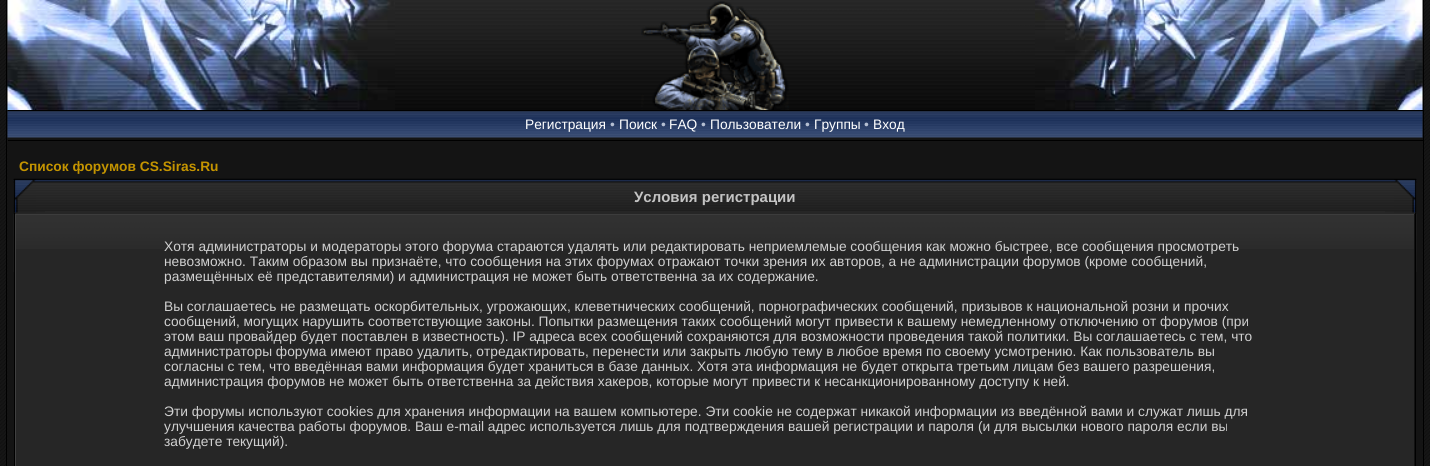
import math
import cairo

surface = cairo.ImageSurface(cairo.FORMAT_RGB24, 1430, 466)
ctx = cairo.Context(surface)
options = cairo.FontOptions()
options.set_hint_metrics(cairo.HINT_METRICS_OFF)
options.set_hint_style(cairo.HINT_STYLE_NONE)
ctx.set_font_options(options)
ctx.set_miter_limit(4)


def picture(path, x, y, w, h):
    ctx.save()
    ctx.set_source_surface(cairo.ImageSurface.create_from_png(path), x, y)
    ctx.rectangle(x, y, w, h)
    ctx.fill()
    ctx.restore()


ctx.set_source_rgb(1, 1, 1)
ctx.paint()
picture("img1.png", 0, 0, 1430, 466)
ctx.set_source_rgb(0, 0, 0)
ctx.rectangle(1423, 0, 1, 466)
ctx.fill()
ctx.rectangle(6, 0, 1, 466)
ctx.fill()
ctx.set_source_rgb(0.082, 0.082, 0.082)
ctx.rectangle(8, 0, 1414, 466)
ctx.fill()
picture("img2.png", 7, 0, 1416, 110)
picture("img3.png", 7, 0, 388, 110)
picture("img4.png", 1035, 0, 388, 110)
picture("img5.png", 641, 1, 148, 109)
ctx.set_source_rgb(0, 0, 0)
ctx.rectangle(8, 110, 1415, 1)
ctx.fill()
ctx.rectangle(8, 140, 1415, 1)
ctx.fill()
picture("img6.png", 7, 111, 1416, 27)
ctx.select_font_face("Liberation Sans")
ctx.set_font_size(13.75)
ctx.set_source_rgb(1, 1, 1)
ctx.move_to(525, 129)
ctx.show_text("Регистрация")
ctx.set_source_rgb(0.71, 0.749, 0.824)
ctx.move_to(610, 129)
ctx.show_text("•")
ctx.set_source_rgb(1, 1, 1)
ctx.move_to(619, 129)
ctx.show_text("Поиск")
ctx.set_source_rgb(0.71, 0.749, 0.824)
ctx.move_to(661, 129)
ctx.show_text("•")
ctx.set_source_rgb(1, 1, 1)
ctx.move_to(669, 129)
ctx.show_text("FAQ")
ctx.set_source_rgb(0.71, 0.749, 0.824)
ctx.move_to(701, 129)
ctx.show_text("•")
ctx.set_source_rgb(1, 1, 1)
ctx.move_to(710, 129)
ctx.show_text("Пользователи")
ctx.set_source_rgb(0.71, 0.749, 0.824)
ctx.move_to(805, 129)
ctx.show_text("•")
ctx.set_source_rgb(1, 1, 1)
ctx.move_to(814, 129)
ctx.show_text("Группы")
ctx.set_source_rgb(0.71, 0.749, 0.824)
ctx.move_to(864, 129)
ctx.show_text("•")
ctx.set_source_rgb(1, 1, 1)
ctx.move_to(873, 129)
ctx.show_text("Вход")
ctx.select_font_face("Liberation Sans", cairo.FONT_SLANT_NORMAL, cairo.FONT_WEIGHT_BOLD)
ctx.set_source_rgb(0.769, 0.58, 0)
ctx.move_to(19, 171)
ctx.show_text("Список форумов CS.Siras.Ru")
ctx.set_source_rgb(0.149, 0.149, 0.149)
ctx.rectangle(15, 211, 1400, 3)
ctx.fill()
picture("img7.png", 13, 214, 1404, 58)
ctx.rectangle(14.5, 179.5, 1401, 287)
ctx.set_source_rgb(0, 0, 0)
ctx.set_line_width(1)
ctx.stroke()
picture("img8.png", 13, 178, 32, 35)
picture("img9.png", 13, 179, 23, 34)
picture("img10.png", 45, 178, 1340, 33)
ctx.set_font_size(15)
ctx.set_source_rgb(0.769, 0.769, 0.769)
ctx.move_to(634, 202)
ctx.show_text("Условия регистрации")
picture("img11.png", 1385, 178, 32, 35)
picture("img12.png", 1394, 179, 23, 34)
ctx.set_source_rgb(0.149, 0.149, 0.149)
ctx.rectangle(16, 249, 1398, 217)
ctx.fill()
picture("img13.png", 16, 215, 1398, 34)
ctx.set_source_rgb(0.235, 0.235, 0.235)
ctx.rectangle(15, 214, 1400, 1)
ctx.fill()
ctx.set_source_rgb(0.071, 0.071, 0.071)
ctx.rectangle(1414, 214, 1, 252)
ctx.fill()
ctx.set_source_rgb(0.251, 0.251, 0.251)
ctx.rectangle(15, 214, 1, 252)
ctx.fill()
ctx.select_font_face("Liberation Sans")
ctx.set_font_size(13.75)
ctx.set_source_rgb(0.816, 0.816, 0.816)
ctx.move_to(164, 251)
ctx.show_text("Хотя администраторы и модераторы этого форума стараются удалять или редактировать неприемлемые сообщения как можно быстрее, все сообщения просмотреть")
ctx.move_to(164, 266)
ctx.show_text("невозможно. Таким образом вы признаёте, что сообщения на этих форумах отражают точки зрения их авторов, а не администрации форумов (кроме сообщений,")
ctx.move_to(164, 281)
ctx.show_text("размещённых её представителями) и администрация не может быть ответственна за их содержание.")
ctx.move_to(164, 311)
ctx.show_text("Вы соглашаетесь не размещать оскорбительных, угрожающих, клеветнических сообщений, порнографических сообщений, призывов к национальной розни и прочих")
ctx.move_to(164, 326)
ctx.show_text("сообщений, могущих нарушить соответствующие законы. Попытки размещения таких сообщений могут привести к вашему немедленному отключению от форумов (при")
ctx.move_to(164, 341)
ctx.show_text("этом ваш провайдер будет поставлен в известность). IP адреса всех сообщений сохраняются для возможности проведения такой политики. Вы соглашаетесь с тем, что")
ctx.move_to(164, 356)
ctx.show_text("администраторы форума имеют право удалить, отредактировать, перенести или закрыть любую тему в любое время по своему усмотрению. Как пользователь вы")
ctx.move_to(164, 371)
ctx.show_text("согласны с тем, что введённая вами информация будет храниться в базе данных. Хотя эта информация не будет открыта третьим лицам без вашего разрешения,")
ctx.move_to(164, 386)
ctx.show_text("администрация форумов не может быть ответственна за действия хакеров, которые могут привести к несанкционированному доступу к ней.")
ctx.move_to(164, 416)
ctx.show_text("Эти форумы используют cookies для хранения информации на вашем компьютере. Эти cookie не содержат никакой информации из введённой вами и служат лишь для")
ctx.move_to(164, 431)
ctx.show_text("улучшения качества работы форумов. Ваш e-mail адрес используется лишь для подтверждения вашей регистрации и пароля (и для высылки нового пароля если вы")
ctx.move_to(164, 446)
ctx.show_text("забудете текущий).")
surface.write_to_png("page.png")
